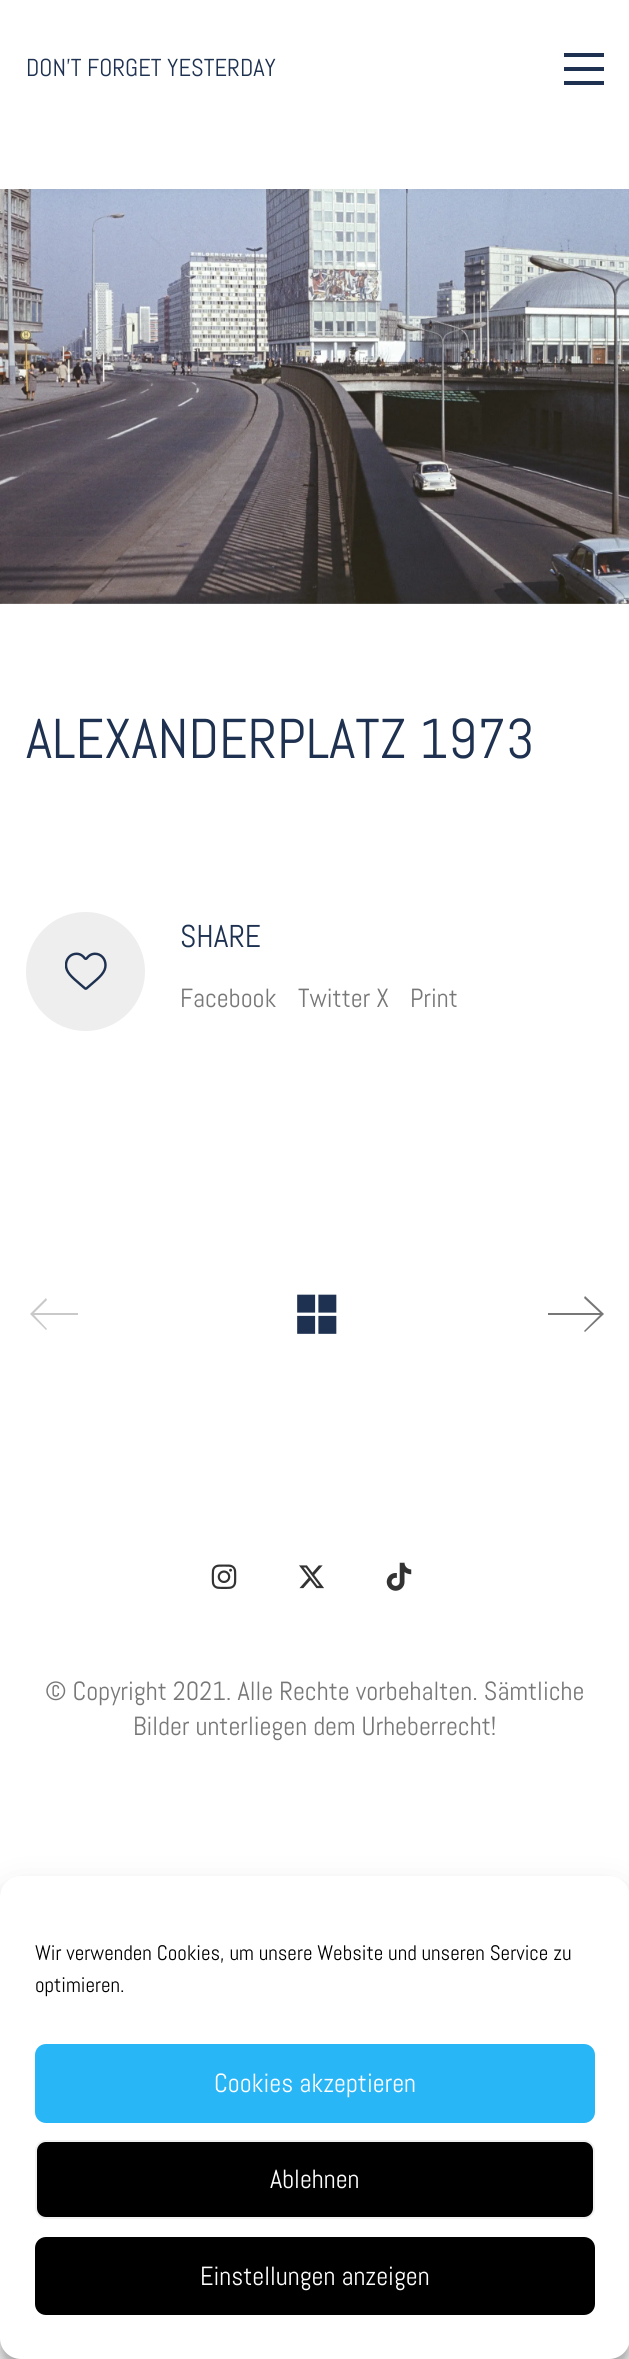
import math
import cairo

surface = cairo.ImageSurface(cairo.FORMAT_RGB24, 629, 2359)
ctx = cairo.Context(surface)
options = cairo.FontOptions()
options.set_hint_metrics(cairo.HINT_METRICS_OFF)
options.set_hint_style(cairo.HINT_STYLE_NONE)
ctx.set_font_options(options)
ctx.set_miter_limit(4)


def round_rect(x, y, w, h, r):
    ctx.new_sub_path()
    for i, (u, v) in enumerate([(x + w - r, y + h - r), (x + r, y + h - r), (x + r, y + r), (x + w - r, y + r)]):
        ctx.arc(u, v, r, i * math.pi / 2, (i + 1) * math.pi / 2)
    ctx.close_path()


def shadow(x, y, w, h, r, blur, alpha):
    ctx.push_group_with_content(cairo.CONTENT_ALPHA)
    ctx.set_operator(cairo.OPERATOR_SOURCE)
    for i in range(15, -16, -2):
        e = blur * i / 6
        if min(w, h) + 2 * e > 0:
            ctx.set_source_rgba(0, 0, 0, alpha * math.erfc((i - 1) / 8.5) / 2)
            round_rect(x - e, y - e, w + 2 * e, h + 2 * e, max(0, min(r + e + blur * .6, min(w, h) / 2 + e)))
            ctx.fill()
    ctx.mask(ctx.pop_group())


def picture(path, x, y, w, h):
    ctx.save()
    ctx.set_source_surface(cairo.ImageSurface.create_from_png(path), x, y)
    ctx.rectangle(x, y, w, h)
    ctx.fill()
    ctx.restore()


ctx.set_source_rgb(1, 1, 1)
ctx.paint()
ctx.select_font_face("Abel")
ctx.set_font_size(24.5)
ctx.set_source_rgb(0.118, 0.192, 0.314)
ctx.move_to(26, 76)
ctx.show_text("DON'T FORGET YESTERDAY")
ctx.rectangle(564, 53, 40, 4)
ctx.fill()
ctx.rectangle(564, 67, 40, 4)
ctx.fill()
ctx.rectangle(564, 81, 40, 4)
ctx.fill()
picture("img1.png", 0, 189, 629, 415)
ctx.set_font_size(56)
ctx.move_to(26, 758)
ctx.show_text("ALEXANDERPLATZ 1973")
ctx.set_source_rgb(0.933, 0.933, 0.933)
ctx.new_path()
ctx.arc(85.5, 971.5, 59.5, 0, 2 * math.pi)
ctx.fill()
picture("img2.png", 65, 952, 42, 38)
ctx.set_font_size(31.5)
ctx.set_source_rgb(0.118, 0.192, 0.314)
ctx.move_to(180, 947)
ctx.show_text("SHARE")
ctx.set_font_size(26.25)
ctx.set_source_rgb(0.467, 0.467, 0.467)
ctx.move_to(180, 1007)
ctx.show_text("Facebook")
ctx.move_to(298, 1007)
ctx.show_text("Twitter X")
ctx.move_to(410, 1007)
ctx.show_text("Print")
ctx.set_source_rgb(0.788, 0.788, 0.788)
ctx.new_path()
ctx.move_to(78, 1313)
ctx.line_to(34, 1313)
ctx.line_to(47, 1300)
ctx.line_to(46, 1298)
ctx.line_to(30, 1314)
ctx.line_to(46, 1330)
ctx.line_to(47, 1329)
ctx.line_to(34, 1315)
ctx.line_to(78, 1315)
ctx.close_path()
ctx.fill()
picture("img3.png", 297, 1294, 40, 40)
ctx.set_source_rgb(0.467, 0.467, 0.467)
ctx.new_path()
ctx.move_to(585, 1296)
ctx.line_to(584, 1298)
ctx.line_to(600, 1313)
ctx.line_to(548, 1313)
ctx.line_to(548, 1315)
ctx.line_to(600, 1315)
ctx.line_to(584, 1331)
ctx.line_to(585, 1332)
ctx.line_to(604, 1314)
ctx.close_path()
ctx.fill()
picture("img4.png", 211, 1564, 26, 25)
picture("img5.png", 299, 1565, 25, 24)
picture("img6.png", 386, 1562, 26, 29)
ctx.move_to(45, 1700)
ctx.show_text("© Copyright 2021. Alle Rechte vorbehalten. Sämtliche")
ctx.move_to(133, 1735)
ctx.show_text("Bilder unterliegen dem Urheberrecht!")
ctx.set_source_rgb(0, 0, 0)
shadow(0, 1887, 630, 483, 21, 5, 0.23)
shadow(0, 1894, 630, 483, 21, 17.5, 0.19)
ctx.set_source_rgb(1, 1, 1)
round_rect(0, 1876, 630, 483, 21)
ctx.fill()
ctx.set_font_size(21)
ctx.set_source_rgb(0, 0, 0)
ctx.move_to(35, 1960)
ctx.show_text("Wir verwenden Cookies, um unsere Website und unseren Service zu")
ctx.move_to(35, 1992)
ctx.show_text("optimieren.")
ctx.set_source_rgb(0.161, 0.714, 0.965)
round_rect(36, 2045, 558, 77, 10)
ctx.fill_preserve()
ctx.stroke()
ctx.set_font_size(26.25)
ctx.set_source_rgb(1, 1, 1)
ctx.move_to(214, 2092)
ctx.show_text("Cookies akzeptieren")
ctx.set_source_rgb(0, 0, 0)
round_rect(36, 2141, 558, 77, 10)
ctx.fill_preserve()
ctx.set_source_rgb(0.945, 0.945, 0.945)
ctx.stroke()
ctx.set_source_rgb(1, 1, 1)
ctx.move_to(270, 2188)
ctx.show_text("Ablehnen")
ctx.set_source_rgb(0, 0, 0)
round_rect(36, 2238, 558, 76, 10)
ctx.fill_preserve()
ctx.stroke()
ctx.set_source_rgb(1, 1, 1)
ctx.move_to(200, 2285)
ctx.show_text("Einstellungen anzeigen")
surface.write_to_png("page.png")
